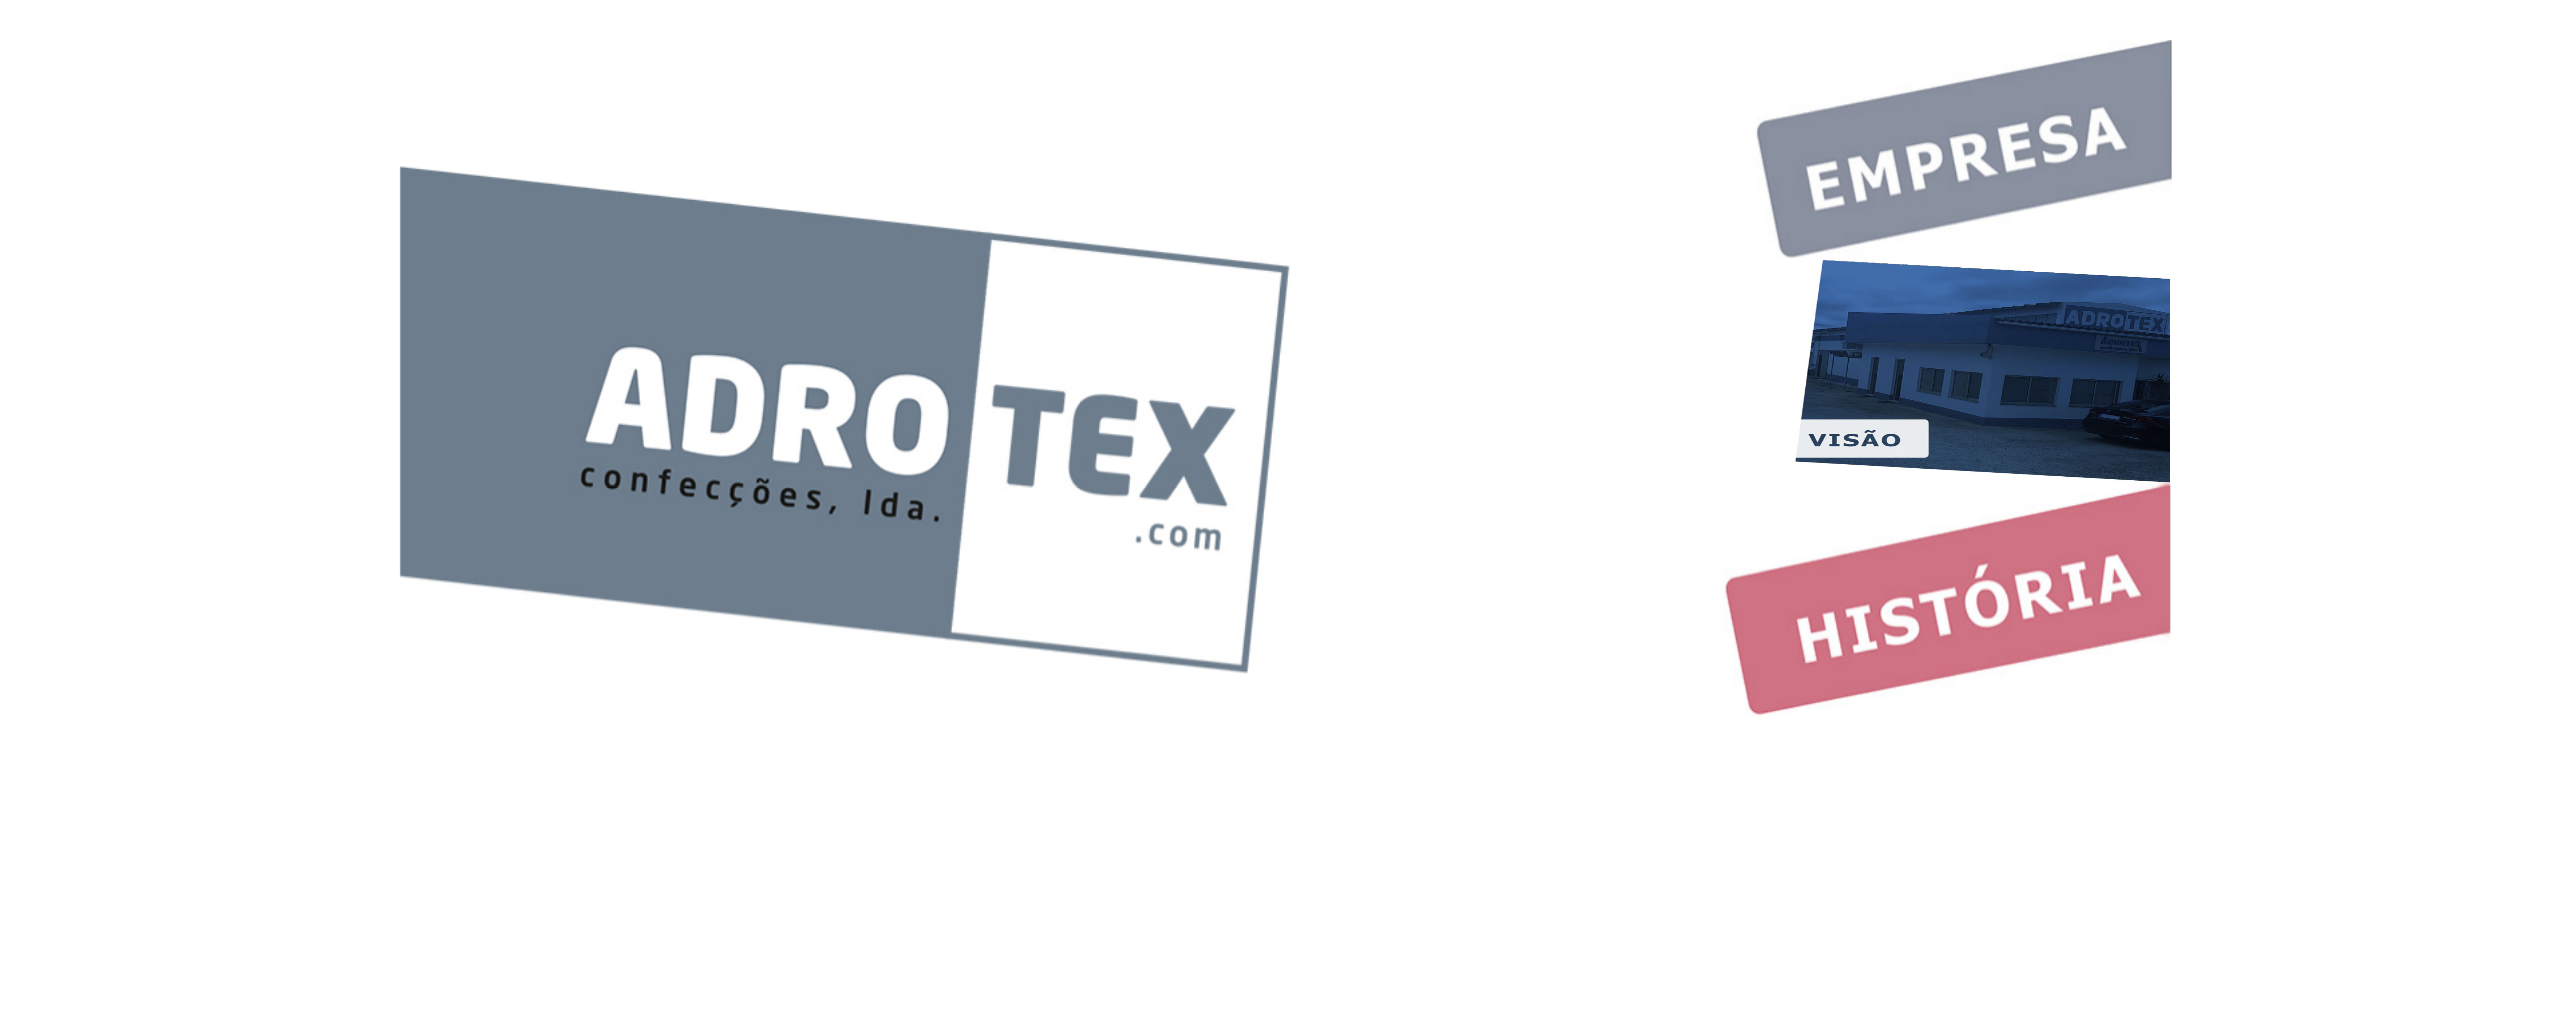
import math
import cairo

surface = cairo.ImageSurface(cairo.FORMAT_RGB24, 2571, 1010)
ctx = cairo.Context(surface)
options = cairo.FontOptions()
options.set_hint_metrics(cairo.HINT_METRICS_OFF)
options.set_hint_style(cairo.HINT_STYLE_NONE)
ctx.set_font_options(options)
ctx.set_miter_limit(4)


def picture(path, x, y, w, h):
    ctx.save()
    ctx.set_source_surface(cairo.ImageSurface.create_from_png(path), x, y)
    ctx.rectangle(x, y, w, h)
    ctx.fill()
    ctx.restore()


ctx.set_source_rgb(1, 1, 1)
ctx.paint()
picture("img1.png", 399, 166, 891, 508)
picture("img2.png", 1750, 40, 422, 219)
picture("img3.png", 1750, 40, 422, 218)
picture("img5.png", 1795, 482, 375, 1)
picture("img7.png", 1723, 482, 448, 234)
picture("img4.png", 1795, 260, 375, 223)
picture("img6.png", 1722, 482, 449, 235)
surface.write_to_png("page.png")
